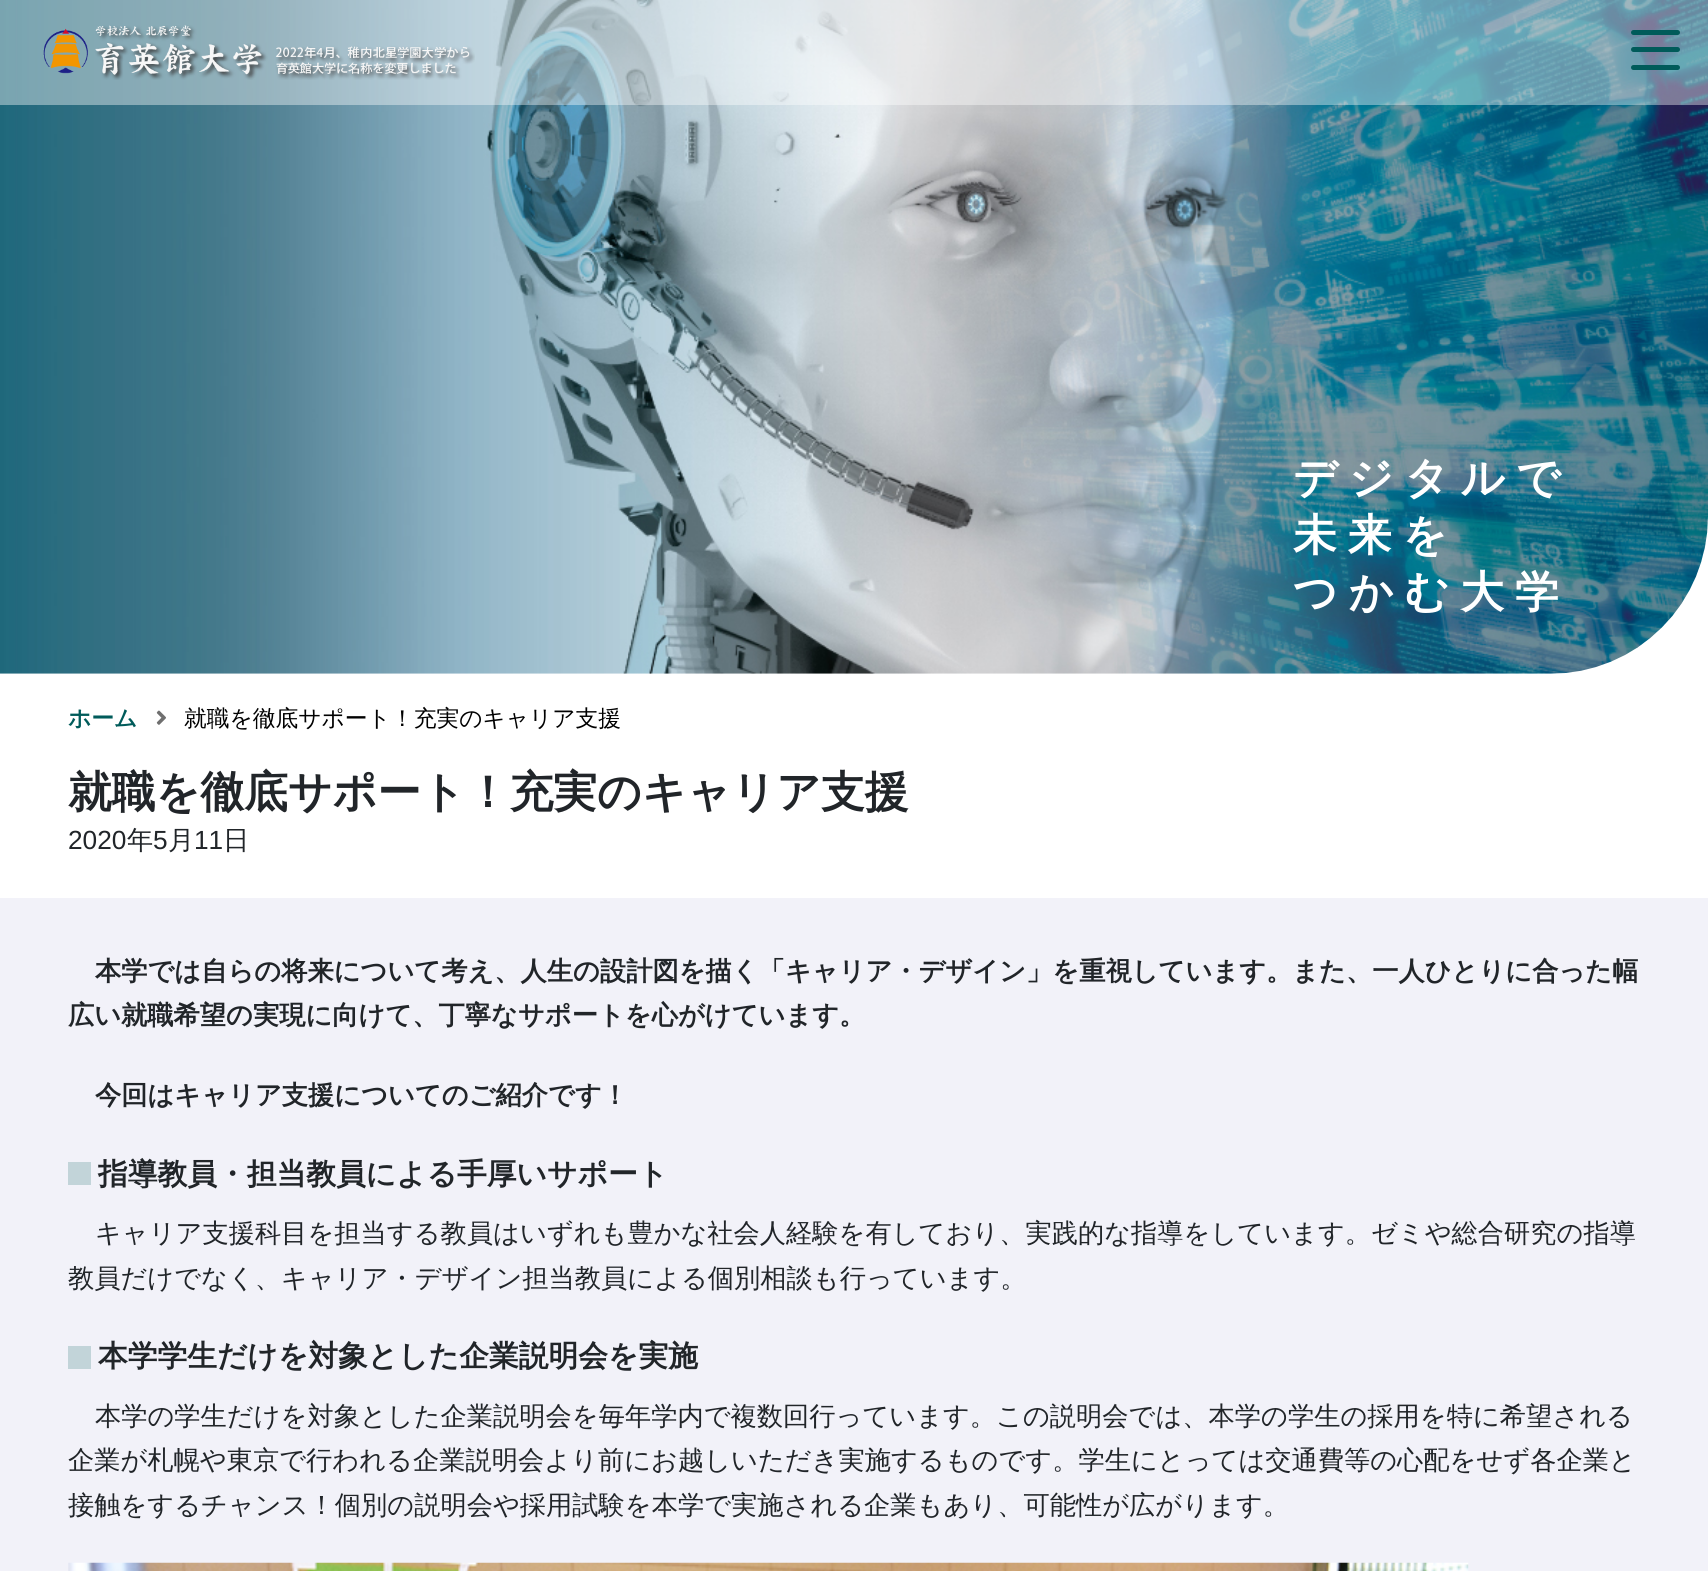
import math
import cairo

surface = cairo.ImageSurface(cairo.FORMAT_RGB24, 1708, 1571)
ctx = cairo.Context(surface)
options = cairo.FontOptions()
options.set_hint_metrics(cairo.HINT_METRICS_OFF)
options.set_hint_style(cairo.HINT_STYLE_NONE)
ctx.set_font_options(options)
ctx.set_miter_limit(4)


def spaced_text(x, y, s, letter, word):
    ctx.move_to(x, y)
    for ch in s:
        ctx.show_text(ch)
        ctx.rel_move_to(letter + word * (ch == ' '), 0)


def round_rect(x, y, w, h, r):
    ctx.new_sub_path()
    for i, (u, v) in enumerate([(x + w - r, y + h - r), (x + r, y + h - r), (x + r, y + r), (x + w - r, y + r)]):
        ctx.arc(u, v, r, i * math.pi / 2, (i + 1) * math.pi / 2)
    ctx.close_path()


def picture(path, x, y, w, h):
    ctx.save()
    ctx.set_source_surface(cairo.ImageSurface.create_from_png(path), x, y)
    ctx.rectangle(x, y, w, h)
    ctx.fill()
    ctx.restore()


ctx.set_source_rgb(0.949, 0.949, 0.976)
ctx.paint()
ctx.set_source_rgb(1, 1, 1)
ctx.rectangle(0, 517, 1708, 381)
ctx.fill()
picture("img2.png", 0, 0, 1708, 674)
ctx.set_source_rgba(1, 1, 1, 0.4)
ctx.rectangle(0, 0, 1708, 105)
ctx.fill()
picture("img1.png", 43, 25, 432, 55)
ctx.set_source_rgb(0, 0.357, 0.353)
round_rect(1631, 30, 49, 5, 2.5)
ctx.fill()
round_rect(1631, 47, 49, 5, 2.5)
ctx.fill()
round_rect(1631, 65, 49, 5, 2.5)
ctx.fill()
ctx.select_font_face("WenQuanYi Zen Hei", cairo.FONT_SLANT_NORMAL, cairo.FONT_WEIGHT_BOLD)
ctx.set_font_size(43.75)
ctx.set_source_rgb(1, 1, 1)
spaced_text(1293, 493, "デジタルで", 11, 0)
spaced_text(1293, 550, "未来を", 11, 0)
spaced_text(1293, 607, "つかむ大学", 11, 0)
ctx.set_font_size(22.75)
ctx.set_source_rgb(0, 0.357, 0.353)
ctx.move_to(68, 726)
ctx.show_text("ホーム")
picture("img3.png", 156, 710, 10, 15)
ctx.select_font_face("WenQuanYi Zen Hei Medium")
ctx.set_source_rgb(0, 0, 0)
ctx.move_to(184, 726)
ctx.show_text("就職を徹底サポート！充実のキャリア支援")
ctx.select_font_face("WenQuanYi Zen Hei", cairo.FONT_SLANT_NORMAL, cairo.FONT_WEIGHT_BOLD)
ctx.set_font_size(43.75)
ctx.set_source_rgb(0.129, 0.145, 0.161)
ctx.move_to(68, 807)
ctx.show_text("就職を徹底サポート！充実のキャリア支援")
ctx.select_font_face("Liberation Sans")
ctx.set_font_size(26.25)
ctx.move_to(68, 849)
ctx.show_text("2020")
ctx.select_font_face("WenQuanYi Zen Hei Medium")
ctx.move_to(127, 849)
ctx.show_text("年")
ctx.select_font_face("Liberation Sans")
ctx.move_to(153, 849)
ctx.show_text("5")
ctx.select_font_face("WenQuanYi Zen Hei Medium")
ctx.move_to(168, 849)
ctx.show_text("月")
ctx.select_font_face("Liberation Sans")
ctx.move_to(194, 849)
ctx.show_text("11")
ctx.select_font_face("WenQuanYi Zen Hei Medium")
ctx.move_to(223, 849)
ctx.show_text("日")
ctx.select_font_face("WenQuanYi Zen Hei", cairo.FONT_SLANT_NORMAL, cairo.FONT_WEIGHT_BOLD)
ctx.move_to(95, 980)
ctx.show_text("本学では自らの将来について考え、人生の設計図を描く「キャリア・デザイン」を重視しています。また、一人ひとりに合った幅")
ctx.move_to(68, 1024)
ctx.show_text("広い就職希望の実現に向けて、丁寧なサポートを心がけています。")
ctx.move_to(95, 1104)
ctx.show_text("今回はキャリア支援についてのご紹介です！")
ctx.set_source_rgb(0.761, 0.831, 0.851)
ctx.rectangle(68, 1162, 23, 23)
ctx.fill()
ctx.set_font_size(29.75)
ctx.set_source_rgb(0.129, 0.145, 0.161)
ctx.move_to(98, 1184)
ctx.show_text("指導教員・担当教員による手厚いサポート")
ctx.select_font_face("WenQuanYi Zen Hei Medium")
ctx.set_font_size(26.25)
ctx.move_to(95, 1242)
ctx.show_text("キャリア支援科目を担当する教員はいずれも豊かな社会人経験を有しており、実践的な指導をしています。ゼミや総合研究の指導")
ctx.move_to(68, 1287)
ctx.show_text("教員だけでなく、キャリア・デザイン担当教員による個別相談も行っています。")
ctx.set_source_rgb(0.761, 0.831, 0.851)
ctx.rectangle(68, 1346, 23, 23)
ctx.fill()
ctx.select_font_face("WenQuanYi Zen Hei", cairo.FONT_SLANT_NORMAL, cairo.FONT_WEIGHT_BOLD)
ctx.set_font_size(29.75)
ctx.set_source_rgb(0.129, 0.145, 0.161)
ctx.move_to(98, 1366)
ctx.show_text("本学学生だけを対象とした企業説明会を実施")
ctx.select_font_face("WenQuanYi Zen Hei Medium")
ctx.set_font_size(26.25)
ctx.move_to(95, 1425)
ctx.show_text("本学の学生だけを対象とした企業説明会を毎年学内で複数回行っています。この説明会では、本学の学生の採用を特に希望される")
ctx.move_to(68, 1469)
ctx.show_text("企業が札幌や東京で行われる企業説明会より前にお越しいただき実施するものです。学生にとっては交通費等の心配をせず各企業と")
ctx.move_to(68, 1514)
ctx.show_text("接触をするチャンス！個別の説明会や採用試験を本学で実施される企業もあり、可能性が広がります。")
picture("img4.png", 68, 1562, 1401, 9)
surface.write_to_png("page.png")
